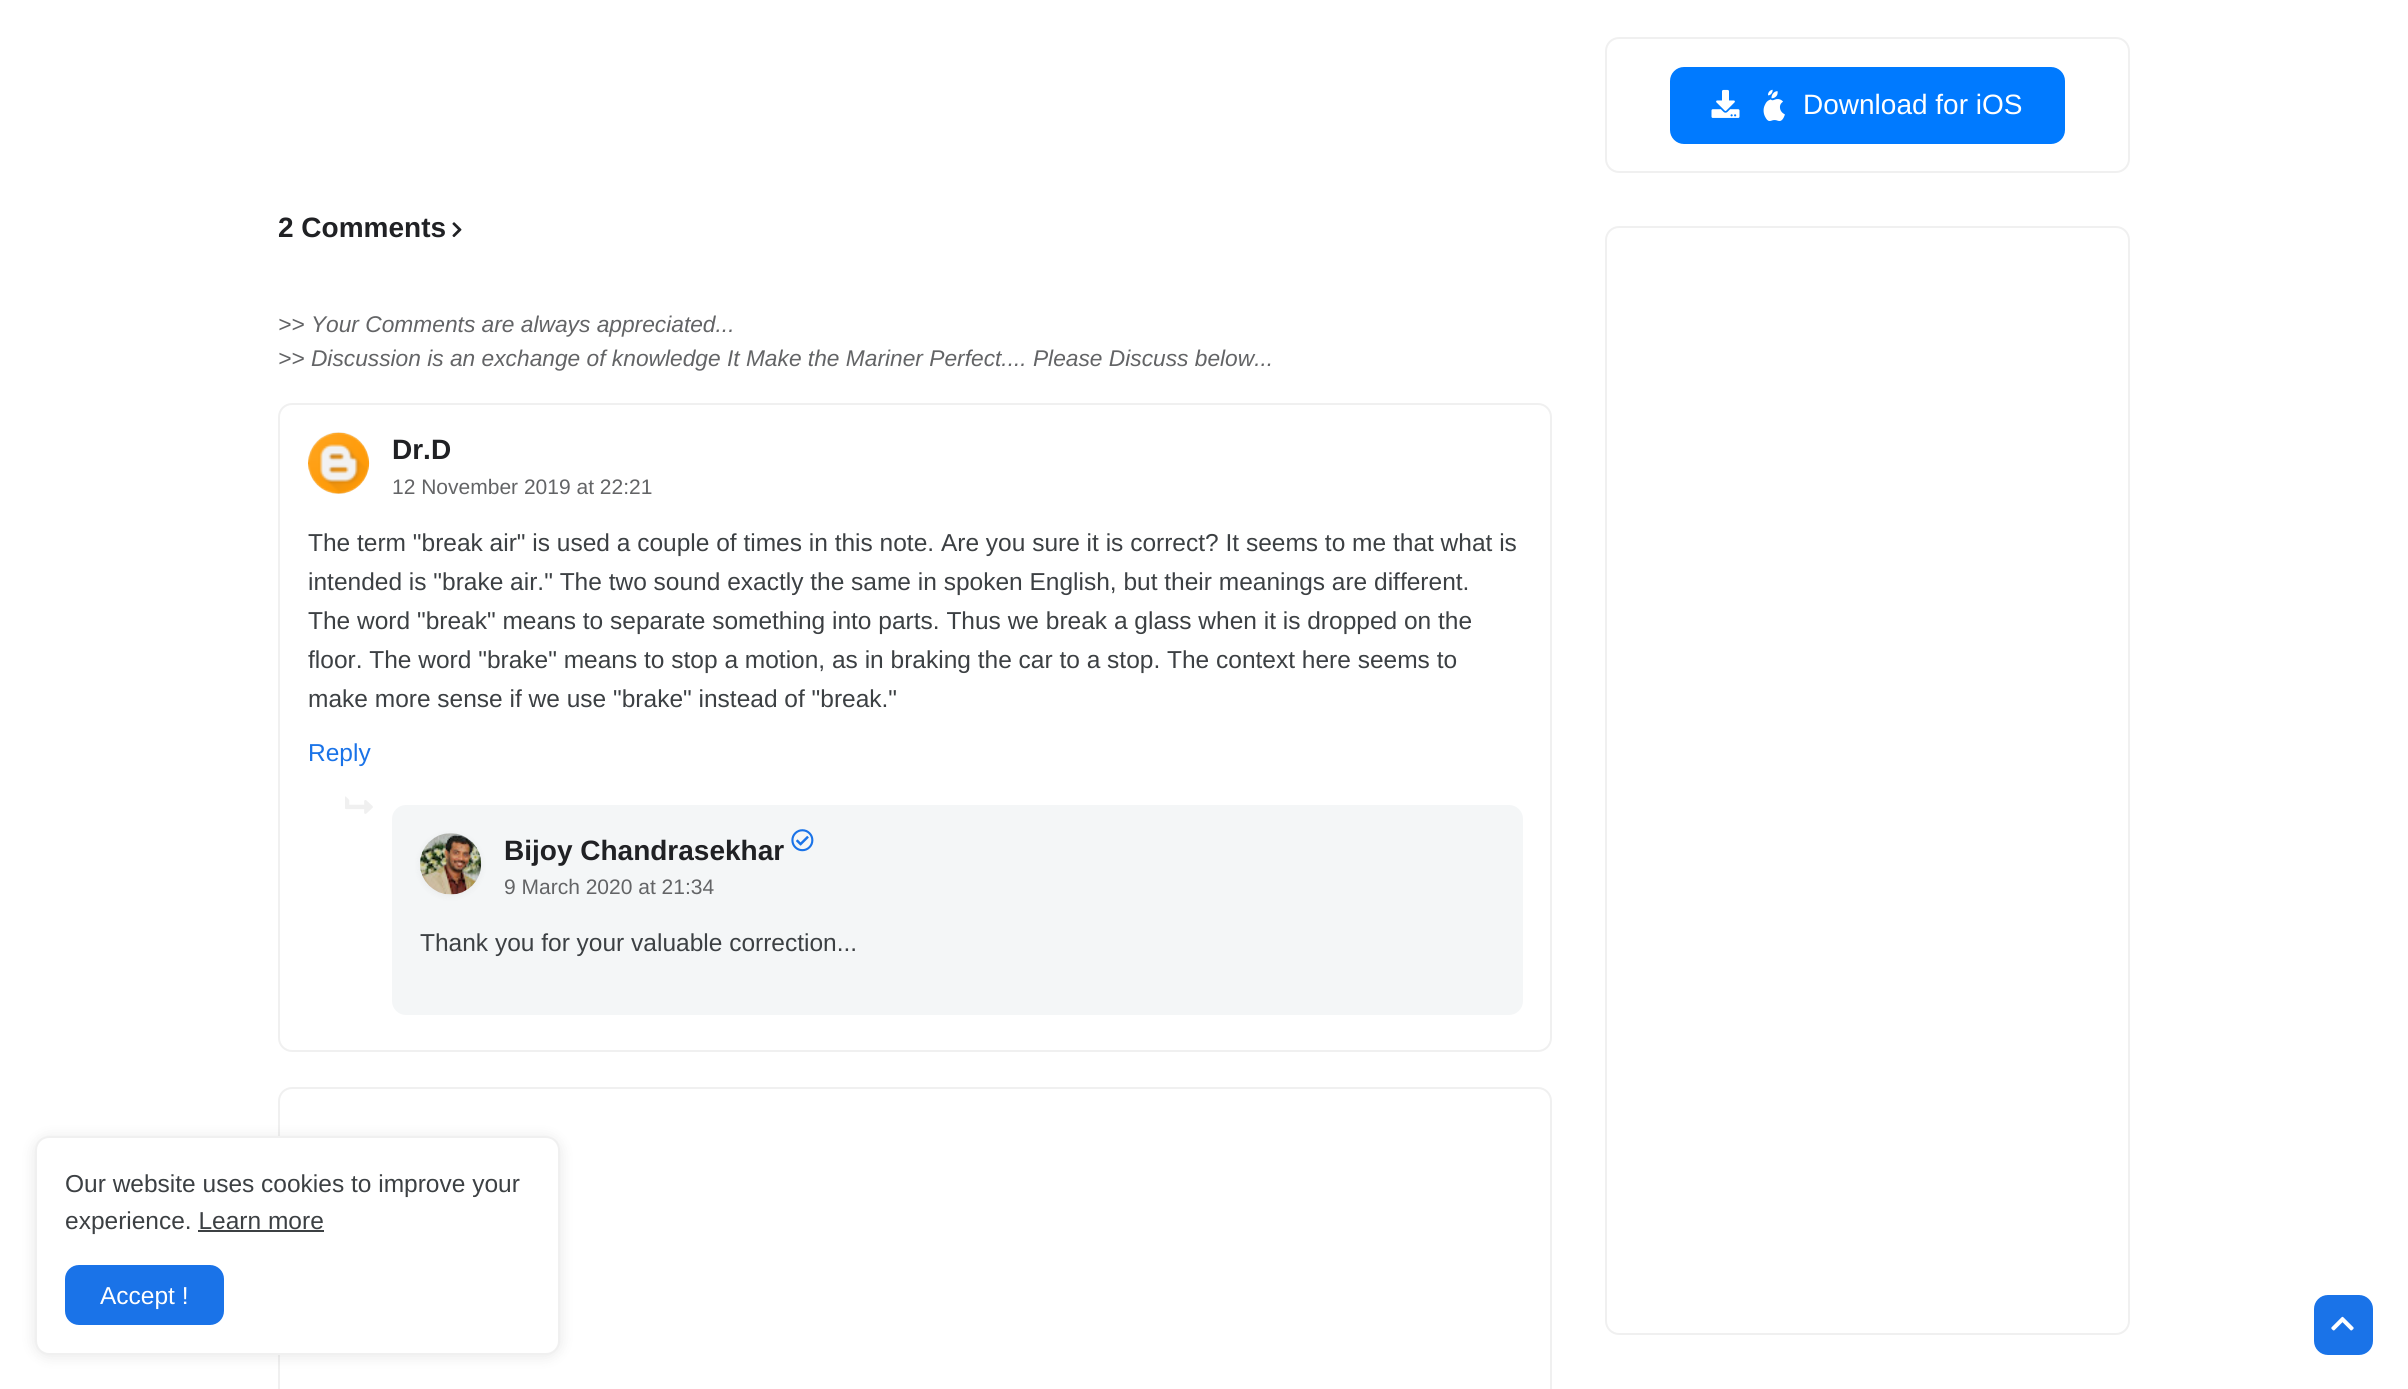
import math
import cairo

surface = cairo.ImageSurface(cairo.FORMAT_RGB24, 2408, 1389)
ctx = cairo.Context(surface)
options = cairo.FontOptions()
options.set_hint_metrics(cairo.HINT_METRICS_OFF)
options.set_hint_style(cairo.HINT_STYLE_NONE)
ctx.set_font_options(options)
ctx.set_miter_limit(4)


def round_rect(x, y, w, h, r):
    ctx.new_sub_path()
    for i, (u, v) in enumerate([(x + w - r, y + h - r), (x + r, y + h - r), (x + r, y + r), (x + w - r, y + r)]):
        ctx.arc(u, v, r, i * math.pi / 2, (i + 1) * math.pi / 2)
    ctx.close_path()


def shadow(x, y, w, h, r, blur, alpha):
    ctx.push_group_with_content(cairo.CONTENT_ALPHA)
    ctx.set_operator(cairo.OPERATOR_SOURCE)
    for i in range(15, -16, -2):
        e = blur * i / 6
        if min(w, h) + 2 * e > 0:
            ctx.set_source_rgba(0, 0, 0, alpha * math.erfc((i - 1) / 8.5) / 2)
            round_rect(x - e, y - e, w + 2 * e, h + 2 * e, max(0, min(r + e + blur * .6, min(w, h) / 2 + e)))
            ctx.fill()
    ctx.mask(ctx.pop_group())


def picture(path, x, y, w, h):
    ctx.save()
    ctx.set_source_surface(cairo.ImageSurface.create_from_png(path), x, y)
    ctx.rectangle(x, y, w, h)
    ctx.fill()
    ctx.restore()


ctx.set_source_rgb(1, 1, 1)
ctx.paint()
round_rect(1606, 38, 523, 134, 13)
ctx.set_source_rgb(0.941, 0.941, 0.941)
ctx.stroke()
ctx.set_source_rgb(0, 0.478, 1)
round_rect(1670, 67, 395, 77, 14)
ctx.fill()
picture("img1.png", 1711, 89, 29, 29)
picture("img2.png", 1763, 89, 22, 32)
ctx.select_font_face("Liberation Sans")
ctx.set_font_size(28)
ctx.set_source_rgb(1, 1, 1)
ctx.move_to(1803, 114)
ctx.show_text("Download for iOS")
round_rect(1606, 227, 523, 1107, 13)
ctx.set_source_rgb(0.941, 0.941, 0.941)
ctx.stroke()
ctx.select_font_face("Liberation Sans", cairo.FONT_SLANT_NORMAL, cairo.FONT_WEIGHT_BOLD)
ctx.set_source_rgb(0.125, 0.129, 0.141)
ctx.move_to(278, 237)
ctx.show_text("2 Comments")
picture("img3.png", 452, 222, 10, 16)
ctx.select_font_face("Liberation Sans", cairo.FONT_SLANT_ITALIC)
ctx.set_font_size(22.75)
ctx.set_source_rgb(0.388, 0.392, 0.4)
ctx.move_to(278, 332)
ctx.show_text(">> Your Comments are always appreciated...")
ctx.move_to(278, 366)
ctx.show_text(">> Discussion is an exchange of knowledge It Make the Mariner Perfect.... Please Discuss below...")
round_rect(279, 404, 1272, 647, 13)
ctx.set_source_rgb(0.941, 0.941, 0.941)
ctx.stroke()
ctx.set_source_rgba(0.608, 0.667, 0.686, 0.12)
round_rect(308, 432, 61, 62, 30.5)
ctx.fill()
picture("img4.png", 308, 432, 62, 62)
ctx.select_font_face("Liberation Sans", cairo.FONT_SLANT_NORMAL, cairo.FONT_WEIGHT_BOLD)
ctx.set_font_size(28)
ctx.set_source_rgb(0.125, 0.129, 0.141)
ctx.move_to(392, 459)
ctx.show_text("Dr.D")
ctx.select_font_face("Liberation Sans")
ctx.set_font_size(21)
ctx.set_source_rgb(0.388, 0.392, 0.4)
ctx.move_to(392, 494)
ctx.show_text("12 November 2019 at 22:21")
ctx.set_font_size(24.5)
ctx.set_source_rgb(0.235, 0.251, 0.263)
ctx.move_to(308, 551)
ctx.show_text("The term \"break air\" is used a couple of times in this note. Are you sure it is correct? It seems to me that what is")
ctx.move_to(308, 590)
ctx.show_text("intended is \"brake air.\" The two sound exactly the same in spoken English, but their meanings are different.")
ctx.move_to(308, 629)
ctx.show_text("The word \"break\" means to separate something into parts. Thus we break a glass when it is dropped on the")
ctx.move_to(308, 668)
ctx.show_text("floor. The word \"brake\" means to stop a motion, as in braking the car to a stop. The context here seems to")
ctx.move_to(308, 707)
ctx.show_text("make more sense if we use \"brake\" instead of \"break.\"")
ctx.set_source_rgb(0.102, 0.451, 0.91)
ctx.move_to(308, 761)
ctx.show_text("Reply")
ctx.set_source_rgb(0.957, 0.961, 0.965)
round_rect(392, 805, 1131, 210, 14)
ctx.fill()
picture("img5.png", 345, 796, 28, 18)
ctx.set_source_rgb(0, 0, 0)
shadow(420, 835, 61, 61, 30.5, 3.5, 0.05)
ctx.set_source_rgba(0.608, 0.667, 0.686, 0.12)
ctx.arc(450.5, 863.5, 30.5, 0, 2 * math.pi)
ctx.fill()
picture("img6.png", 420, 833, 62, 62)
ctx.select_font_face("Liberation Sans", cairo.FONT_SLANT_NORMAL, cairo.FONT_WEIGHT_BOLD)
ctx.set_font_size(28)
ctx.set_source_rgb(0.125, 0.129, 0.141)
ctx.move_to(504, 860)
ctx.show_text("Bijoy Chandrasekhar")
picture("img7.png", 791, 829, 23, 23)
ctx.select_font_face("Liberation Sans")
ctx.set_font_size(21)
ctx.set_source_rgb(0.388, 0.392, 0.4)
ctx.move_to(504, 894)
ctx.show_text("9 March 2020 at 21:34")
ctx.set_font_size(24.5)
ctx.set_source_rgb(0.235, 0.251, 0.263)
ctx.move_to(420, 951)
ctx.show_text("Thank you for your valuable correction...")
round_rect(279, 1088, 1272, 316, 13)
ctx.set_source_rgb(0.941, 0.941, 0.941)
ctx.stroke()
ctx.set_source_rgb(0, 0, 0)
shadow(35, 1138, 525, 218, 14, 7, 0.1)
ctx.set_source_rgb(1, 1, 1)
round_rect(35, 1136, 525, 219, 14)
ctx.fill()
round_rect(36, 1137, 523, 217, 13)
ctx.set_source_rgba(0.608, 0.608, 0.608, 0.15)
ctx.stroke()
ctx.set_source_rgb(0.235, 0.251, 0.263)
ctx.move_to(65, 1192)
ctx.show_text("Our website uses cookies to improve your")
ctx.move_to(65, 1229)
ctx.show_text("experience. Learn more")
ctx.rectangle(198, 1230, 126, 2)
ctx.fill()
ctx.set_source_rgb(0.102, 0.451, 0.91)
round_rect(65, 1265, 159, 60, 14)
ctx.fill()
ctx.set_source_rgb(1, 1, 1)
ctx.move_to(100, 1304)
ctx.show_text("Accept !")
ctx.set_source_rgb(0.102, 0.451, 0.91)
round_rect(2314, 1295, 59, 60, 14)
ctx.fill()
picture("img8.png", 2331, 1316, 23, 15)
surface.write_to_png("page.png")
